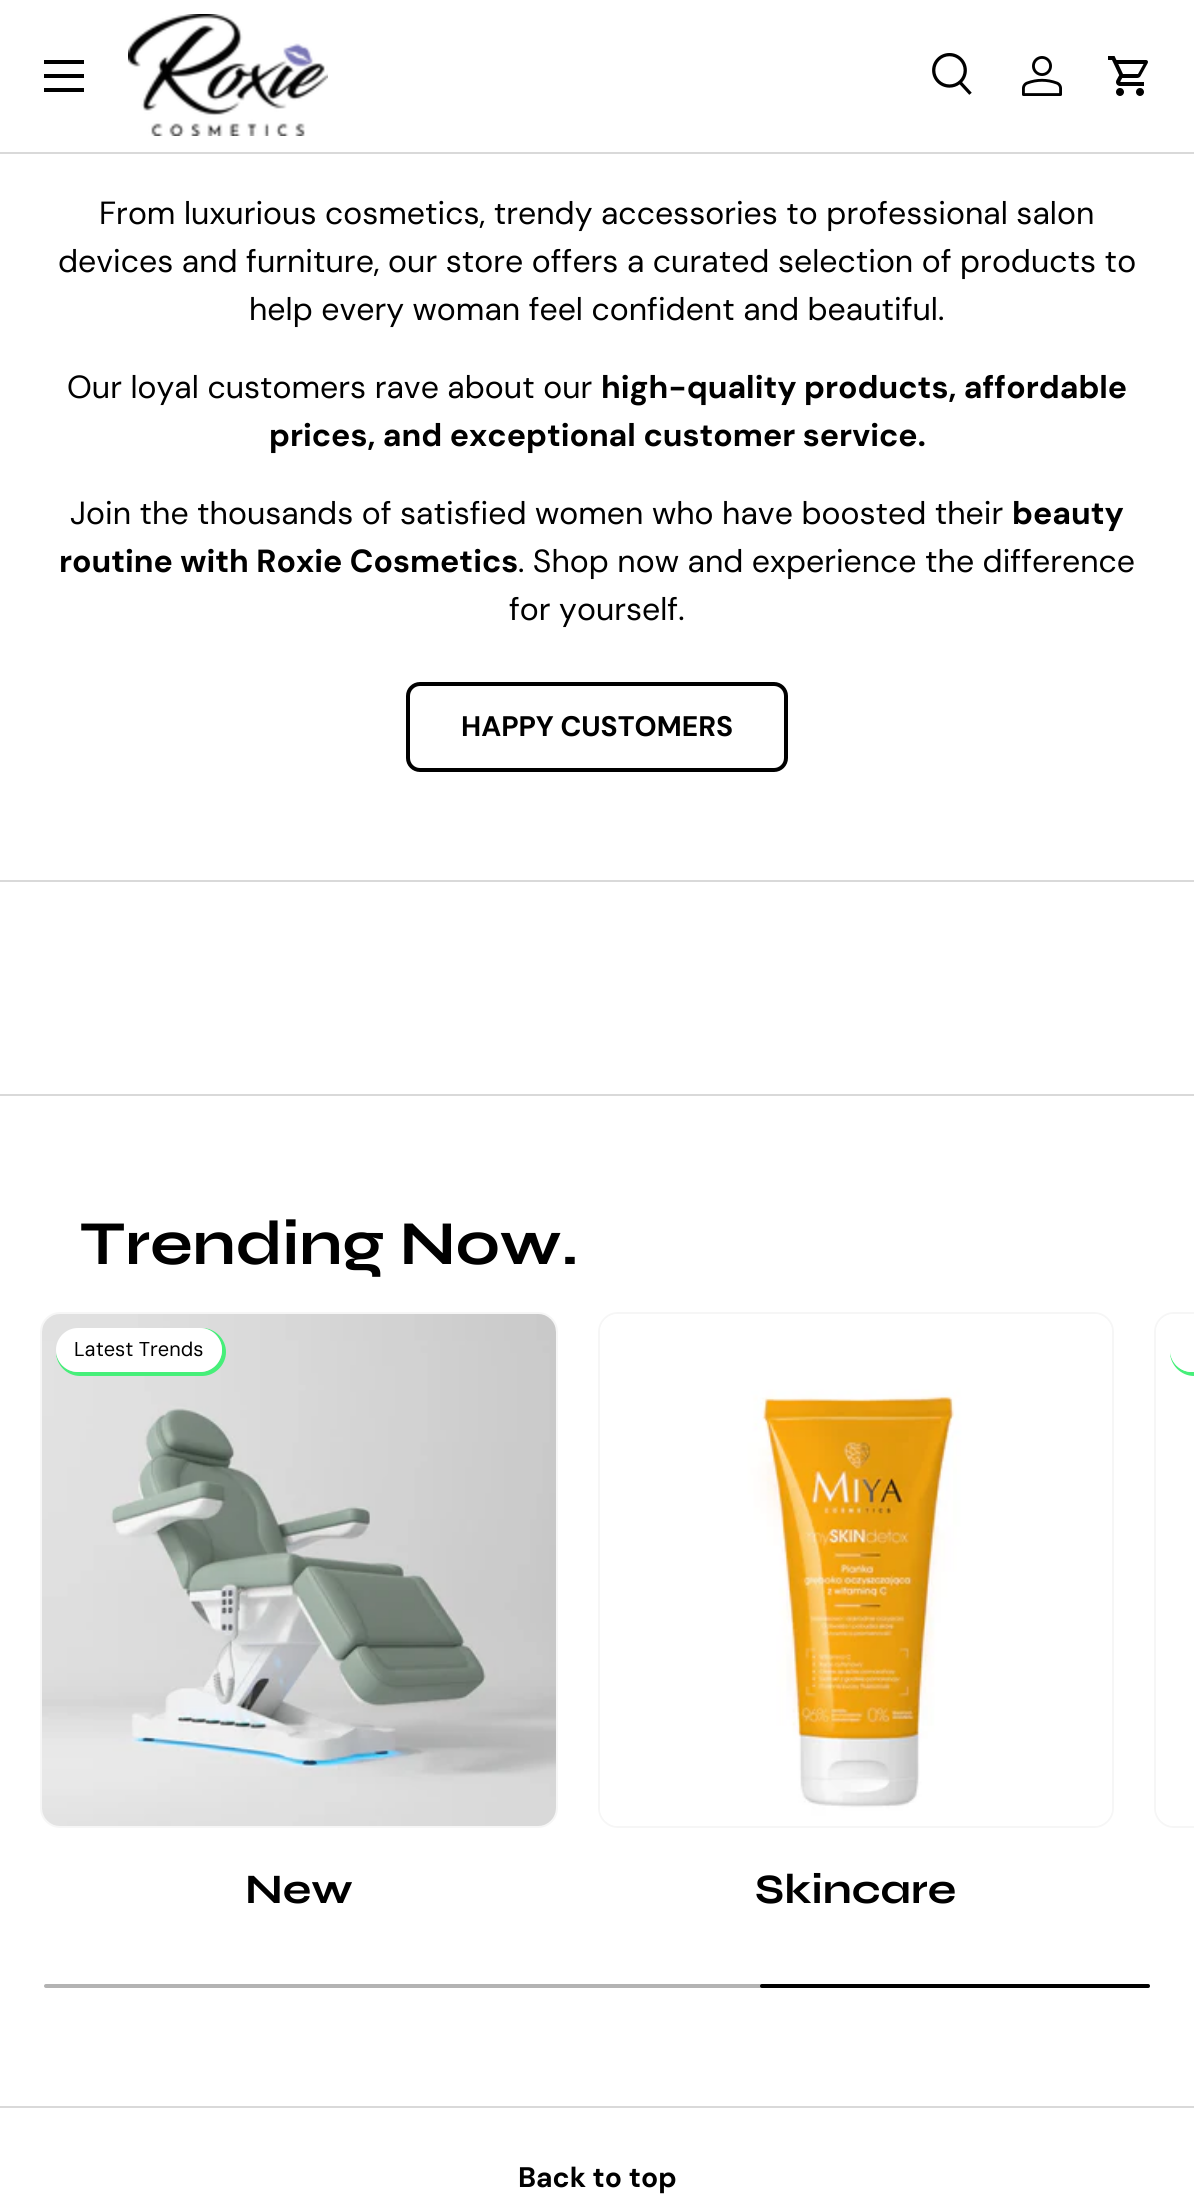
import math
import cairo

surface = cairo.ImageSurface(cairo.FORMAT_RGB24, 1194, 2200)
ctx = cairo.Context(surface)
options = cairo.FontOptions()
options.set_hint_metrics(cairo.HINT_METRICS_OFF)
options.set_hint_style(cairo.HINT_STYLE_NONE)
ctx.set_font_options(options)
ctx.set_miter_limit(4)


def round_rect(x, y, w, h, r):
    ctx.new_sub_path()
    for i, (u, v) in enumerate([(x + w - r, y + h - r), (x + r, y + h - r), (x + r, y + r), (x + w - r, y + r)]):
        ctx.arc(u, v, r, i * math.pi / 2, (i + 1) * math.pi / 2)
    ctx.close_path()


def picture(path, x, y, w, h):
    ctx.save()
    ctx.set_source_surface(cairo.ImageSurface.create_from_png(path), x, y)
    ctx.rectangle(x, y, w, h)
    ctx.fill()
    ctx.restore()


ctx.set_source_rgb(1, 1, 1)
ctx.paint()
ctx.set_source_rgb(0.851, 0.851, 0.851)
ctx.rectangle(0, 152, 1194, 2)
ctx.fill()
ctx.set_source_rgb(0, 0, 0)
ctx.rectangle(44, 60, 40, 4)
ctx.fill()
ctx.rectangle(44, 88, 40, 4)
ctx.fill()
ctx.rectangle(44, 74, 40, 4)
ctx.fill()
picture("img1.png", 128, 14, 200, 122)
picture("img2.png", 932, 53, 40, 42)
picture("img3.png", 1022, 56, 40, 40)
picture("img4.png", 1108, 56, 40, 40)
ctx.select_font_face("DM Sans")
ctx.set_font_size(32)
ctx.move_to(99, 224)
ctx.show_text("From luxurious cosmetics, trendy accessories to professional salon")
ctx.move_to(58, 272)
ctx.show_text("devices and furniture, our store offers a curated selection of products to")
ctx.move_to(249, 320)
ctx.show_text("help every woman feel confident and beautiful.")
ctx.move_to(67, 398)
ctx.show_text("Our loyal customers rave about our")
ctx.select_font_face("DM Sans", cairo.FONT_SLANT_NORMAL, cairo.FONT_WEIGHT_BOLD)
ctx.move_to(601, 398)
ctx.show_text("high-quality products, affordable")
ctx.move_to(269, 446)
ctx.show_text("prices, and exceptional customer service.")
ctx.select_font_face("DM Sans")
ctx.move_to(70, 524)
ctx.show_text("Join the thousands of satisfied women who have boosted their")
ctx.select_font_face("DM Sans", cairo.FONT_SLANT_NORMAL, cairo.FONT_WEIGHT_BOLD)
ctx.move_to(1012, 524)
ctx.show_text("beauty")
ctx.move_to(59, 572)
ctx.show_text("routine with Roxie Cosmetics")
ctx.select_font_face("DM Sans")
ctx.move_to(518, 572)
ctx.show_text(". Shop now and experience the difference")
ctx.move_to(509, 620)
ctx.show_text("for yourself.")
round_rect(408, 684, 378, 86, 12)
ctx.set_line_width(4)
ctx.stroke()
ctx.select_font_face("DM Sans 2", cairo.FONT_SLANT_NORMAL, cairo.FONT_WEIGHT_BOLD)
ctx.set_font_size(28.25)
ctx.move_to(461, 736)
ctx.show_text("HAPPY CUSTOMERS")
ctx.set_source_rgb(0.851, 0.851, 0.851)
ctx.rectangle(0, 880, 1194, 2)
ctx.fill()
ctx.rectangle(0, 1094, 1194, 2)
ctx.fill()
ctx.select_font_face("Syne", cairo.FONT_SLANT_NORMAL, cairo.FONT_WEIGHT_BOLD)
ctx.set_font_size(62.5)
ctx.set_source_rgb(0, 0, 0)
ctx.move_to(80, 1264)
ctx.show_text("Trending Now.")
round_rect(41, 1313, 516, 514, 19)
ctx.set_source_rgb(0.961, 0.961, 0.961)
ctx.set_line_width(2)
ctx.stroke()
picture("img5.png", 42, 1314, 514, 512)
ctx.set_source_rgb(0.275, 0.937, 0.475)
ctx.new_path()
ctx.move_to(202, 1328)
ctx.line_to(200, 1328)
ctx.curve_to(212, 1328, 222, 1338, 222, 1350)
ctx.curve_to(222, 1362, 212, 1372, 200, 1372)
ctx.line_to(78, 1372)
ctx.curve_to(66, 1372, 57, 1363, 56, 1351)
ctx.line_to(56, 1352)
ctx.curve_to(56, 1365, 67, 1376, 80, 1376)
ctx.line_to(202, 1376)
ctx.curve_to(215, 1376, 226, 1365, 226, 1352)
ctx.curve_to(226, 1339, 215, 1328, 202, 1328)
ctx.close_path()
ctx.fill()
ctx.set_source_rgb(1, 1, 1)
round_rect(56, 1328, 166, 44, 22)
ctx.fill()
ctx.select_font_face("DM Sans 2")
ctx.set_font_size(20)
ctx.set_source_rgb(0, 0, 0)
ctx.move_to(74, 1356)
ctx.show_text("Latest Trends")
ctx.select_font_face("Syne", cairo.FONT_SLANT_NORMAL, cairo.FONT_WEIGHT_BOLD)
ctx.set_font_size(42)
ctx.move_to(245, 1903)
ctx.show_text("New")
round_rect(599, 1313, 514, 514, 19)
ctx.set_source_rgb(0.961, 0.961, 0.961)
ctx.stroke()
picture("img6.png", 600, 1314, 512, 512)
ctx.set_source_rgb(0, 0, 0)
ctx.move_to(755, 1903)
ctx.show_text("Skincare")
round_rect(1155, 1313, 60, 514, 19)
ctx.set_source_rgb(0.961, 0.961, 0.961)
ctx.stroke()
picture("img7.png", 1156, 1314, 38, 512)
ctx.set_source_rgb(0.275, 0.937, 0.475)
ctx.new_path()
ctx.move_to(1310, 1328)
ctx.line_to(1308, 1328)
ctx.curve_to(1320, 1328, 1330, 1338, 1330, 1350)
ctx.curve_to(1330, 1362, 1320, 1372, 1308, 1372)
ctx.line_to(1192, 1372)
ctx.curve_to(1180, 1372, 1171, 1363, 1170, 1351)
ctx.line_to(1170, 1352)
ctx.curve_to(1170, 1365, 1181, 1376, 1194, 1376)
ctx.line_to(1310, 1376)
ctx.curve_to(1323, 1376, 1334, 1365, 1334, 1352)
ctx.curve_to(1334, 1339, 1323, 1328, 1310, 1328)
ctx.close_path()
ctx.fill()
ctx.set_source_rgb(1, 1, 1)
ctx.new_path()
ctx.move_to(1192, 1328)
ctx.line_to(1194, 1328)
ctx.line_to(1194, 1372)
ctx.line_to(1192, 1372)
ctx.curve_to(1180, 1372, 1170, 1362, 1170, 1350)
ctx.curve_to(1170, 1338, 1180, 1328, 1192, 1328)
ctx.close_path()
ctx.fill()
ctx.set_source_rgb(0.702, 0.702, 0.702)
round_rect(44, 1984, 1106, 4, 2)
ctx.fill()
ctx.set_source_rgb(0, 0, 0)
round_rect(760, 1984, 390, 4, 2)
ctx.fill()
ctx.set_source_rgb(0.851, 0.851, 0.851)
ctx.rectangle(0, 2106, 1194, 2)
ctx.fill()
ctx.select_font_face("DM Sans 2", cairo.FONT_SLANT_NORMAL, cairo.FONT_WEIGHT_BOLD)
ctx.set_font_size(28.25)
ctx.set_source_rgb(0, 0, 0)
ctx.move_to(518, 2187)
ctx.show_text("Back to top")
surface.write_to_png("page.png")
